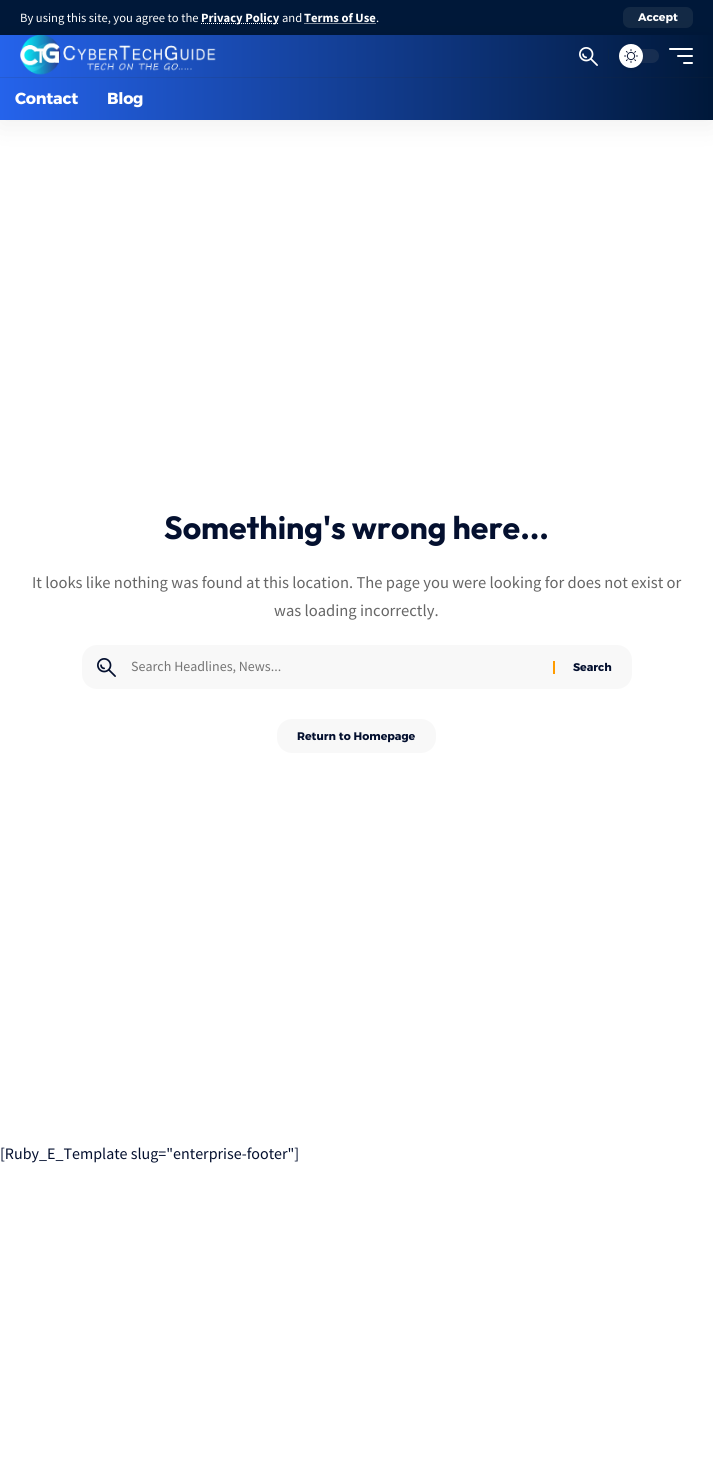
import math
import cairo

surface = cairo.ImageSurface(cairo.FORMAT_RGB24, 713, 1457)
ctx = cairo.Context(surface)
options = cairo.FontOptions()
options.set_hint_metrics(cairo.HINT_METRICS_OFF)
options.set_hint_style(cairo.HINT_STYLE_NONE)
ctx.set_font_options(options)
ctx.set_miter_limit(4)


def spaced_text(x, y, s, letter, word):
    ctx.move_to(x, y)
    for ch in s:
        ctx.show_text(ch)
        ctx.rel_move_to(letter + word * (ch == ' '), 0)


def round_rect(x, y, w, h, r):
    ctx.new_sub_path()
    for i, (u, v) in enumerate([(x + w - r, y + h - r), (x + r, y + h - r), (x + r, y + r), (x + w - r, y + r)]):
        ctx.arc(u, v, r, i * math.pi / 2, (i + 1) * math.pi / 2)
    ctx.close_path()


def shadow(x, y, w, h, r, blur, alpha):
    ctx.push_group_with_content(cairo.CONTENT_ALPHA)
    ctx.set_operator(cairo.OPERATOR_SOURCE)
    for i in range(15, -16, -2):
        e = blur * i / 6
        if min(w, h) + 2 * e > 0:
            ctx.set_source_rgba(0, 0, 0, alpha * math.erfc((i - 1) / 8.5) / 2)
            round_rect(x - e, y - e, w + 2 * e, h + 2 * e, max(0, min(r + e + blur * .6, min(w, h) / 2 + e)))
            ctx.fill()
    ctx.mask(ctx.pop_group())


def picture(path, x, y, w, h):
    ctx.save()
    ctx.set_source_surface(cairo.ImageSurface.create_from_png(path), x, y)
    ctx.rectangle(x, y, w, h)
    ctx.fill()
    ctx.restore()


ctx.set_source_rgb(1, 1, 1)
ctx.paint()
ctx.set_source_rgb(0, 0.094, 0.224)
ctx.rectangle(0, 0, 713, 35)
ctx.fill()
ctx.select_font_face("Source Sans Pro")
ctx.set_font_size(12.6)
ctx.set_source_rgb(1, 1, 1)
ctx.move_to(20, 22)
ctx.show_text("By using this site, you agree to the")
ctx.new_path()
ctx.move_to(201, 23.5)
ctx.line_to(279, 23.5)
ctx.set_line_width(1)
ctx.set_dash([1, 1])
ctx.stroke()
ctx.select_font_face("Source Sans Pro", cairo.FONT_SLANT_NORMAL, cairo.FONT_WEIGHT_BOLD)
ctx.move_to(201, 22)
ctx.show_text("Privacy Policy")
ctx.select_font_face("Source Sans Pro")
ctx.move_to(282, 22)
ctx.show_text("and")
ctx.select_font_face("Source Sans Pro", cairo.FONT_SLANT_NORMAL, cairo.FONT_WEIGHT_BOLD)
ctx.move_to(304, 22)
ctx.show_text("Terms of Use")
ctx.new_path()
ctx.move_to(304.5, 23.5)
ctx.line_to(376, 23.5)
ctx.stroke()
ctx.select_font_face("Source Sans Pro")
ctx.move_to(376, 22)
ctx.show_text(".")
ctx.set_source_rgb(0.078, 0.161, 0.271)
round_rect(623, 7, 70, 21, 7)
ctx.fill()
ctx.select_font_face("Alexandria", cairo.FONT_SLANT_NORMAL, cairo.FONT_WEIGHT_BOLD)
ctx.set_font_size(11)
ctx.set_source_rgb(1, 1, 1)
ctx.move_to(638, 21)
ctx.show_text("Accept")
ctx.set_source_rgb(0, 0, 0)
shadow(0, 39, 713, 85, 0, 15, 0.07)
gradient = cairo.LinearGradient(0, 78, 713, 77)
gradient.add_color_stop_rgba(0, 0.145, 0.388, 0.922, 1)
gradient.add_color_stop_rgba(1, 0, 0.094, 0.224, 1)
ctx.set_source(gradient)
ctx.rectangle(0, 35, 713, 85)
ctx.fill()
gradient = cairo.LinearGradient(0, 78, 713, 77)
gradient.add_color_stop_rgba(0, 0.145, 0.361, 0.831, 1)
gradient.add_color_stop_rgba(1, 0.02, 0.102, 0.216, 1)
ctx.set_source(gradient)
ctx.rectangle(0, 77, 713, 1)
ctx.fill()
picture("img1.png", 20, 35, 196, 40)
picture("img2.png", 579, 47, 19, 19)
ctx.set_source_rgb(0.035, 0.141, 0.306)
ctx.rectangle(608, 49, 1, 14)
ctx.fill()
ctx.set_source_rgba(0.533, 0.533, 0.533, 0.15)
round_rect(619, 49, 40, 14, 7)
ctx.fill()
ctx.set_source_rgb(0, 0, 0)
shadow(619, 45, 24, 24, 12, 2, 0.12)
ctx.set_source_rgb(1, 1, 1)
ctx.arc(631, 56, 12, 0, 2 * math.pi)
ctx.fill()
picture("img3.png", 624, 49, 14, 14)
round_rect(669, 48, 24, 2, 1)
ctx.fill()
round_rect(677, 55, 16, 2, 1)
ctx.fill()
round_rect(683, 62, 10, 2, 1)
ctx.fill()
ctx.set_font_size(16)
spaced_text(15, 104, "Contact", -0.25, 0)
spaced_text(107, 104, "Blog", -0.25, 0)
ctx.select_font_face("Outfit", cairo.FONT_SLANT_NORMAL, cairo.FONT_WEIGHT_BOLD)
ctx.set_font_size(32)
ctx.set_source_rgb(0.016, 0.063, 0.184)
ctx.move_to(164, 539)
ctx.show_text("Something's wrong here...")
ctx.select_font_face("Source Sans Pro")
ctx.set_font_size(16.55)
ctx.set_source_rgb(0.4, 0.4, 0.4)
ctx.move_to(32, 588)
ctx.show_text("It looks like nothing was found at this location. The page you were looking for does not exist or")
ctx.move_to(274, 616)
ctx.show_text("was loading incorrectly.")
ctx.set_source_rgb(0.969, 0.969, 0.969)
round_rect(82, 645, 550, 44, 15)
ctx.fill()
picture("img4.png", 97, 658, 19, 19)
ctx.set_font_size(14)
ctx.set_source_rgb(0.459, 0.459, 0.459)
ctx.move_to(131, 671)
ctx.show_text("Search Headlines, News...")
ctx.set_source_rgb(1, 0.612, 0)
ctx.rectangle(553, 661, 2, 13)
ctx.fill()
ctx.select_font_face("Alexandria", cairo.FONT_SLANT_NORMAL, cairo.FONT_WEIGHT_BOLD)
ctx.set_font_size(11)
ctx.set_source_rgb(0.016, 0.063, 0.184)
ctx.move_to(573, 671)
ctx.show_text("Search")
ctx.set_source_rgb(0.969, 0.969, 0.969)
round_rect(277, 719, 159, 34, 15)
ctx.fill()
ctx.set_source_rgb(0.016, 0.063, 0.184)
ctx.move_to(297, 740)
ctx.show_text("Return to Homepage")
ctx.select_font_face("Source Sans Pro")
ctx.set_font_size(16)
ctx.move_to(0, 1159)
ctx.show_text("[Ruby_E_Template slug=\"enterprise-footer\"]")
surface.write_to_png("page.png")
